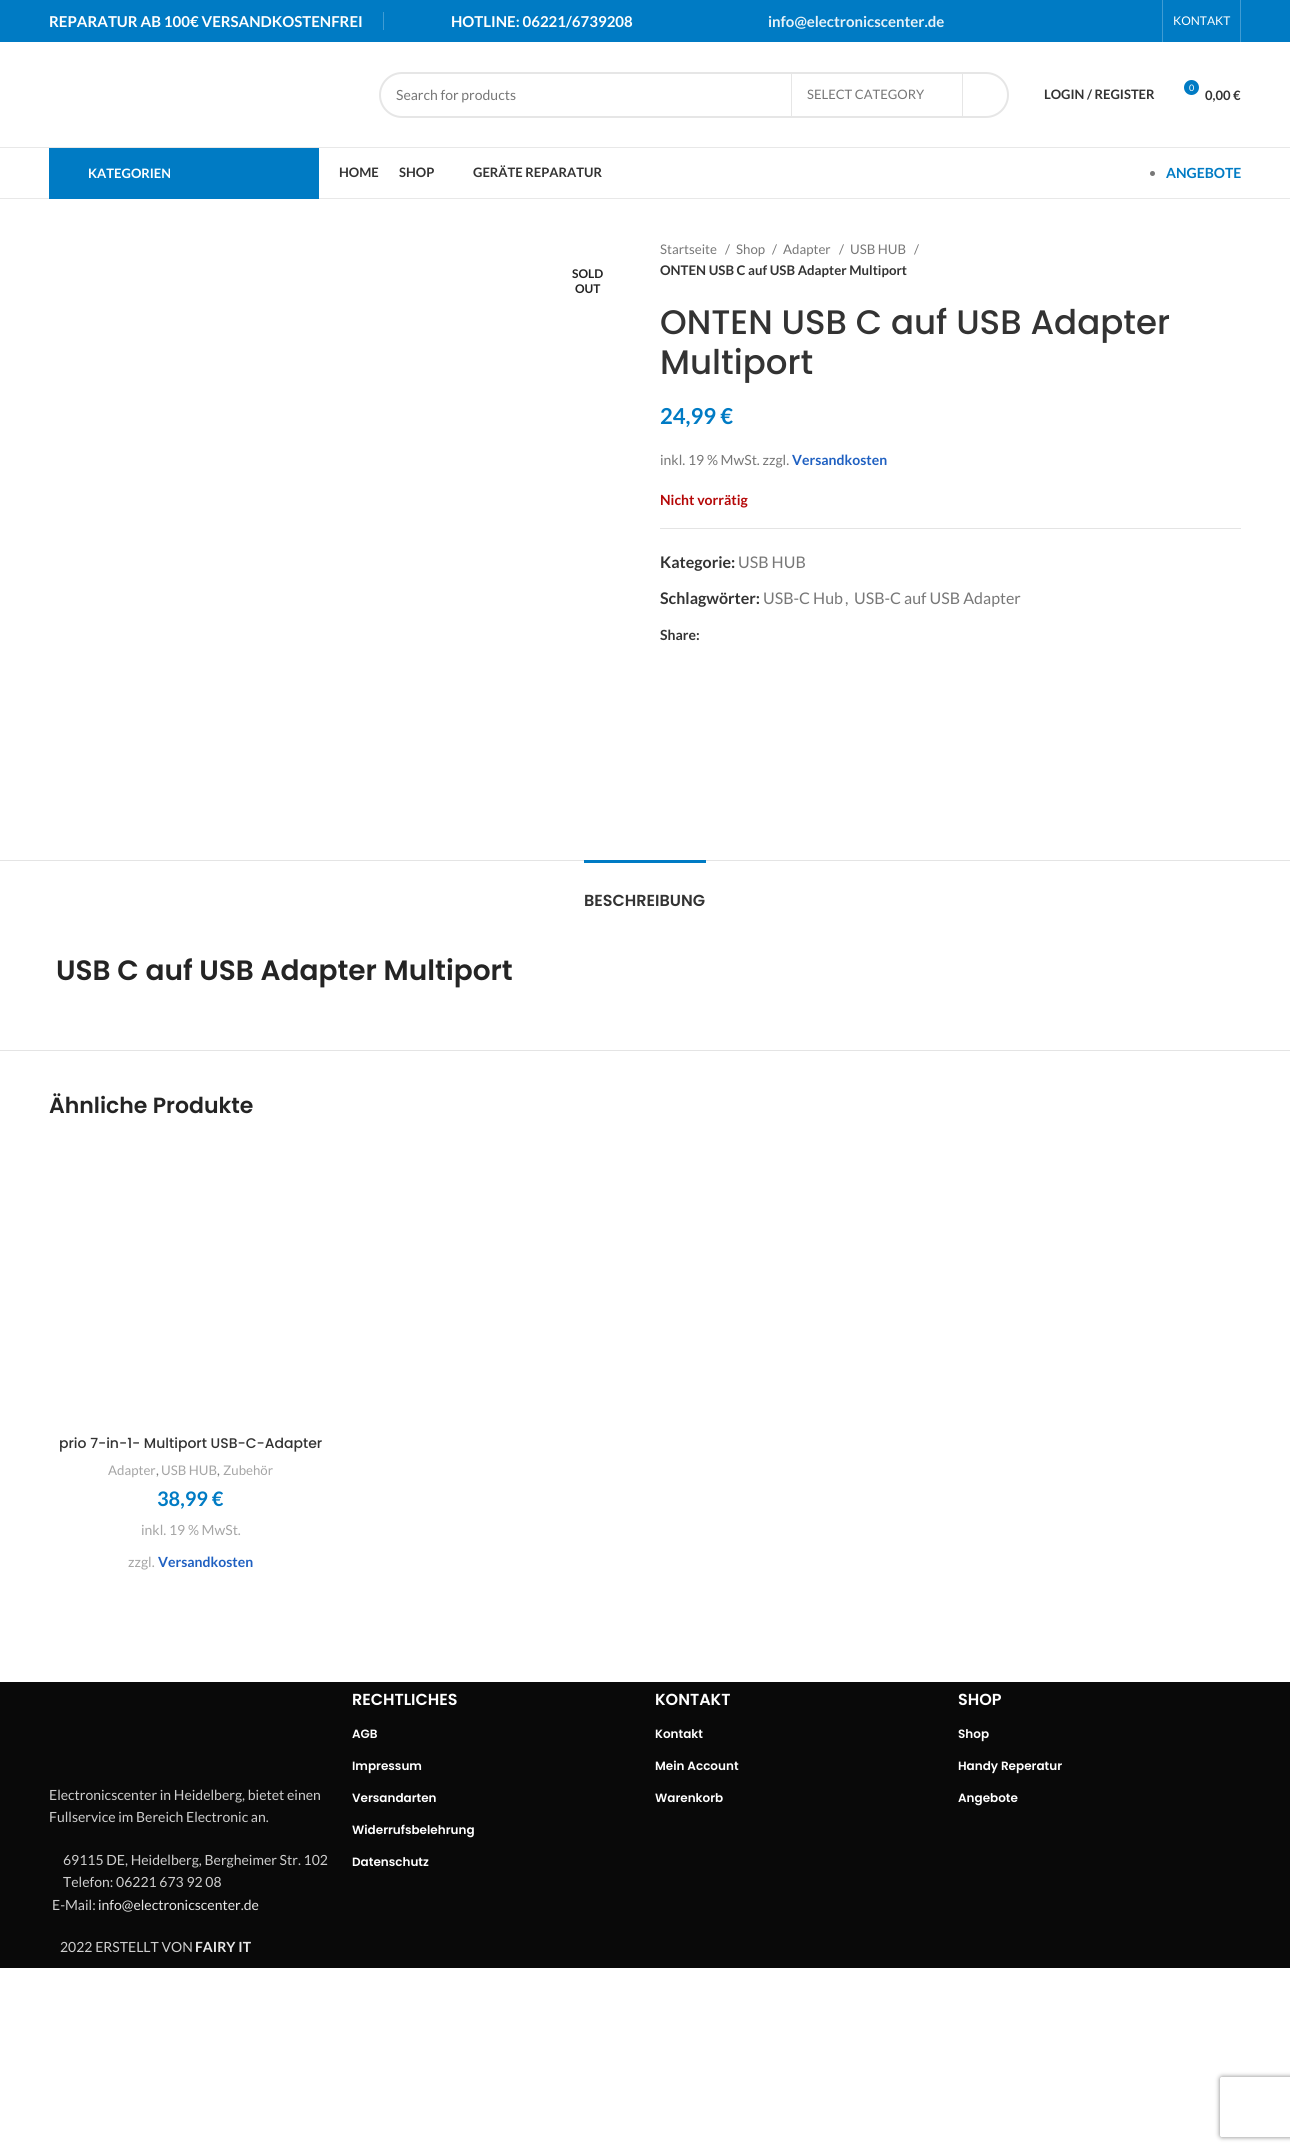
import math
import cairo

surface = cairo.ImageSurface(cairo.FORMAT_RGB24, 1290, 2151)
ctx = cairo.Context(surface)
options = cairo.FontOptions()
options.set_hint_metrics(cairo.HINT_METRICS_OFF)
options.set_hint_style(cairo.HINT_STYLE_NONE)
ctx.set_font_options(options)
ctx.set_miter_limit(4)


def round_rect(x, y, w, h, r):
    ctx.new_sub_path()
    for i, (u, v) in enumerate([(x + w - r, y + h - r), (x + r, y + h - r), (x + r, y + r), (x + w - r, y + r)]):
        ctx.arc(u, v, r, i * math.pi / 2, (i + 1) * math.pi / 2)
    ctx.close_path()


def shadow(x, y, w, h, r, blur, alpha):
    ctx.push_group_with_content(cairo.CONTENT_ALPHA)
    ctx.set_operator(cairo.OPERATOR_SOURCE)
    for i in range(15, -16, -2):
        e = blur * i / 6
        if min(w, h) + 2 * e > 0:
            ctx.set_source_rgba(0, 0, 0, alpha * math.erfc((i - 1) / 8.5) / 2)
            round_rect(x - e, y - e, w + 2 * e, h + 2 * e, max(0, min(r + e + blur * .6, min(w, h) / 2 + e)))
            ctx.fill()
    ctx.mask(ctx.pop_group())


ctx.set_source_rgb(1, 1, 1)
ctx.paint()
ctx.set_source_rgb(0, 0.482, 0.769)
ctx.rectangle(0, 0, 1290, 42)
ctx.fill()
ctx.select_font_face("Lato", cairo.FONT_SLANT_NORMAL, cairo.FONT_WEIGHT_BOLD)
ctx.set_font_size(15)
ctx.set_source_rgb(1, 1, 1)
ctx.move_to(49, 27)
ctx.show_text("REPARATUR AB 100€ VERSANDKOSTENFREI")
ctx.set_source_rgb(0.251, 0.612, 0.827)
ctx.rectangle(383, 12, 1, 18)
ctx.fill()
ctx.set_source_rgb(1, 1, 1)
ctx.move_to(451, 27)
ctx.show_text("HOTLINE: 06221/6739208")
ctx.set_source_rgb(0.902, 0.949, 0.976)
ctx.move_to(768, 27)
ctx.show_text("info@electronicscenter.de")
ctx.set_source_rgb(0.251, 0.612, 0.827)
ctx.rectangle(1162, 0, 1, 42)
ctx.fill()
ctx.select_font_face("Lato")
ctx.set_font_size(12)
ctx.set_source_rgb(1, 1, 1)
ctx.move_to(1173, 25)
ctx.show_text("KONTAKT")
ctx.set_source_rgb(0.251, 0.612, 0.827)
ctx.rectangle(1240, 0, 1, 42)
ctx.fill()
ctx.set_source_rgb(0.91, 0.91, 0.91)
ctx.rectangle(0, 147, 1290, 1)
ctx.fill()
round_rect(380, 73, 628, 44, 22)
ctx.set_source_rgb(0.902, 0.902, 0.902)
ctx.stroke()
ctx.set_font_size(14)
ctx.set_source_rgb(0.467, 0.467, 0.467)
ctx.move_to(396, 100)
ctx.show_text("Search for products")
ctx.set_source_rgb(0.902, 0.902, 0.902)
ctx.rectangle(962, 74, 1, 42)
ctx.fill()
ctx.rectangle(791, 74, 1, 42)
ctx.fill()
ctx.set_font_size(13)
ctx.set_source_rgb(0.467, 0.467, 0.467)
ctx.move_to(807, 99)
ctx.show_text("SELECT CATEGORY")
ctx.select_font_face("Lato", cairo.FONT_SLANT_NORMAL, cairo.FONT_WEIGHT_BOLD)
ctx.set_source_rgb(0.2, 0.2, 0.2)
ctx.move_to(1044, 99)
ctx.show_text("LOGIN / REGISTER")
ctx.set_source_rgb(0, 0.482, 0.769)
ctx.new_path()
ctx.arc(1191.5, 87.5, 7.5, 0, 2 * math.pi)
ctx.fill()
ctx.select_font_face("Lato")
ctx.set_font_size(9)
ctx.set_source_rgb(1, 1, 1)
ctx.move_to(1189, 91)
ctx.show_text("0")
ctx.select_font_face("Lato", cairo.FONT_SLANT_NORMAL, cairo.FONT_WEIGHT_BOLD)
ctx.set_font_size(13)
ctx.set_source_rgb(0.2, 0.2, 0.2)
ctx.move_to(1205, 100)
ctx.show_text("0,00 €")
ctx.set_source_rgb(0.91, 0.91, 0.91)
ctx.rectangle(0, 198, 1290, 1)
ctx.fill()
ctx.set_source_rgb(0, 0.482, 0.769)
ctx.rectangle(49, 148, 270, 51)
ctx.fill()
ctx.set_source_rgb(1, 1, 1)
ctx.move_to(88, 178)
ctx.show_text("KATEGORIEN")
ctx.set_source_rgb(0.2, 0.2, 0.2)
ctx.move_to(339, 177)
ctx.show_text("HOME")
ctx.move_to(399, 177)
ctx.show_text("SHOP")
ctx.move_to(473, 177)
ctx.show_text("GERÄTE REPARATUR")
ctx.set_source_rgb(0.467, 0.467, 0.467)
ctx.new_path()
ctx.arc(1152.5, 173.5, 2.5, 0, 2 * math.pi)
ctx.fill()
ctx.set_font_size(14)
ctx.set_source_rgb(0, 0.482, 0.769)
ctx.move_to(1166, 178)
ctx.show_text("ANGEBOTE")
ctx.set_font_size(12)
ctx.set_source_rgb(0.141, 0.141, 0.141)
ctx.move_to(572, 278)
ctx.show_text("SOLD")
ctx.move_to(575, 293)
ctx.show_text("OUT")
ctx.select_font_face("Lato")
ctx.set_font_size(13.25)
ctx.set_source_rgb(0.467, 0.467, 0.467)
ctx.move_to(660, 254)
ctx.show_text("Startseite")
ctx.move_to(725, 254)
ctx.show_text("/")
ctx.move_to(736, 254)
ctx.show_text("Shop")
ctx.move_to(772, 254)
ctx.show_text("/")
ctx.move_to(783, 254)
ctx.show_text("Adapter")
ctx.move_to(839, 254)
ctx.show_text("/")
ctx.move_to(850, 254)
ctx.show_text("USB HUB")
ctx.move_to(914, 254)
ctx.show_text("/")
ctx.select_font_face("Lato", cairo.FONT_SLANT_NORMAL, cairo.FONT_WEIGHT_BOLD)
ctx.set_source_rgb(0.2, 0.2, 0.2)
ctx.move_to(660, 275)
ctx.show_text("ONTEN USB C auf USB Adapter Multiport")
ctx.select_font_face("Poppins Medium")
ctx.set_font_size(34)
ctx.move_to(660, 334)
ctx.show_text("ONTEN USB C auf USB Adapter")
ctx.move_to(660, 374)
ctx.show_text("Multiport")
ctx.select_font_face("Lato", cairo.FONT_SLANT_NORMAL, cairo.FONT_WEIGHT_BOLD)
ctx.set_font_size(22)
ctx.set_source_rgb(0, 0.482, 0.769)
ctx.move_to(660, 424)
ctx.show_text("24,99 €")
ctx.select_font_face("Lato")
ctx.set_font_size(14)
ctx.set_source_rgb(0.467, 0.467, 0.467)
ctx.move_to(660, 465)
ctx.show_text("inkl. 19 % MwSt. zzgl.")
ctx.select_font_face("Lato", cairo.FONT_SLANT_NORMAL, cairo.FONT_WEIGHT_BOLD)
ctx.set_source_rgb(0.122, 0.376, 0.757)
ctx.move_to(792, 465)
ctx.show_text("Versandkosten")
ctx.set_source_rgb(0.71, 0.031, 0.031)
ctx.move_to(660, 505)
ctx.show_text("Nicht vorrätig")
ctx.set_source_rgb(0.894, 0.894, 0.894)
ctx.rectangle(660, 528, 581, 1)
ctx.fill()
ctx.set_font_size(16)
ctx.set_source_rgb(0.2, 0.2, 0.2)
ctx.move_to(660, 568)
ctx.show_text("Kategorie:")
ctx.select_font_face("Lato")
ctx.set_source_rgb(0.467, 0.467, 0.467)
ctx.move_to(738, 568)
ctx.show_text("USB HUB")
ctx.select_font_face("Lato", cairo.FONT_SLANT_NORMAL, cairo.FONT_WEIGHT_BOLD)
ctx.set_source_rgb(0.2, 0.2, 0.2)
ctx.move_to(660, 604)
ctx.show_text("Schlagwörter:")
ctx.select_font_face("Lato")
ctx.set_source_rgb(0.467, 0.467, 0.467)
ctx.move_to(763, 604)
ctx.show_text("USB-C Hub")
ctx.move_to(845, 604)
ctx.show_text(",")
ctx.move_to(854, 604)
ctx.show_text("USB-C auf USB Adapter")
ctx.select_font_face("Lato", cairo.FONT_SLANT_NORMAL, cairo.FONT_WEIGHT_BOLD)
ctx.set_font_size(14)
ctx.set_source_rgb(0.2, 0.2, 0.2)
ctx.move_to(660, 640)
ctx.show_text("Share:")
ctx.set_source_rgb(0.894, 0.894, 0.894)
ctx.rectangle(0, 860, 1290, 1)
ctx.fill()
ctx.rectangle(0, 1050, 1290, 1)
ctx.fill()
ctx.set_source_rgb(0, 0.482, 0.769)
ctx.rectangle(584, 860, 122, 3)
ctx.fill()
ctx.select_font_face("Poppins SemiBold")
ctx.set_font_size(16)
ctx.set_source_rgb(0.2, 0.2, 0.2)
ctx.move_to(584, 906)
ctx.show_text("BESCHREIBUNG")
ctx.set_font_size(28)
ctx.set_source_rgb(0.141, 0.141, 0.141)
ctx.move_to(56, 980)
ctx.show_text("USB C auf USB Adapter Multiport")
ctx.set_font_size(22)
ctx.move_to(49, 1113)
ctx.show_text("Ähnliche Produkte")
ctx.select_font_face("Poppins Medium")
ctx.set_font_size(14)
ctx.set_source_rgb(0.2, 0.2, 0.2)
ctx.move_to(59, 1448)
ctx.show_text("prio 7-in-1- Multiport USB-C-Adapter")
ctx.select_font_face("Lato")
ctx.set_font_size(13.25)
ctx.set_source_rgb(0.647, 0.647, 0.647)
ctx.move_to(108, 1475)
ctx.show_text("Adapter")
ctx.set_source_rgb(0.467, 0.467, 0.467)
ctx.move_to(156, 1475)
ctx.show_text(",")
ctx.set_source_rgb(0.647, 0.647, 0.647)
ctx.move_to(161, 1475)
ctx.show_text("USB HUB")
ctx.set_source_rgb(0.467, 0.467, 0.467)
ctx.move_to(217, 1475)
ctx.show_text(",")
ctx.set_source_rgb(0.647, 0.647, 0.647)
ctx.move_to(223, 1475)
ctx.show_text("Zubehör")
ctx.select_font_face("Lato", cairo.FONT_SLANT_NORMAL, cairo.FONT_WEIGHT_BOLD)
ctx.set_font_size(20)
ctx.set_source_rgb(0, 0.482, 0.769)
ctx.move_to(157, 1506)
ctx.show_text("38,99 €")
ctx.select_font_face("Lato")
ctx.set_font_size(14)
ctx.set_source_rgb(0.647, 0.647, 0.647)
ctx.move_to(141, 1535)
ctx.show_text("inkl. 19 % MwSt.")
ctx.move_to(128, 1567)
ctx.show_text("zzgl.")
ctx.select_font_face("Lato", cairo.FONT_SLANT_NORMAL, cairo.FONT_WEIGHT_BOLD)
ctx.set_source_rgb(0.122, 0.376, 0.757)
ctx.move_to(158, 1567)
ctx.show_text("Versandkosten")
ctx.set_source_rgb(0.039, 0.039, 0.039)
ctx.rectangle(0, 1682, 1290, 286)
ctx.fill()
ctx.select_font_face("Poppins SemiBold")
ctx.set_font_size(16)
ctx.set_source_rgb(1, 1, 1)
ctx.move_to(352, 1705)
ctx.show_text("RECHTLICHES")
ctx.set_font_size(12)
ctx.move_to(352, 1738)
ctx.show_text("AGB")
ctx.move_to(352, 1770)
ctx.show_text("Impressum")
ctx.move_to(352, 1802)
ctx.show_text("Versandarten")
ctx.move_to(352, 1834)
ctx.show_text("Widerrufsbelehrung")
ctx.move_to(352, 1866)
ctx.show_text("Datenschutz")
ctx.set_font_size(16)
ctx.move_to(655, 1705)
ctx.show_text("KONTAKT")
ctx.set_font_size(12)
ctx.move_to(655, 1738)
ctx.show_text("Kontakt")
ctx.move_to(655, 1770)
ctx.show_text("Mein Account")
ctx.move_to(655, 1802)
ctx.show_text("Warenkorb")
ctx.set_font_size(16)
ctx.move_to(958, 1705)
ctx.show_text("SHOP")
ctx.set_font_size(12)
ctx.move_to(958, 1738)
ctx.show_text("Shop")
ctx.move_to(958, 1770)
ctx.show_text("Handy Reperatur")
ctx.move_to(958, 1802)
ctx.show_text("Angebote")
ctx.select_font_face("Lato")
ctx.set_font_size(14)
ctx.set_source_rgb(0.808, 0.808, 0.808)
ctx.move_to(49, 1800)
ctx.show_text("Electronicscenter in Heidelberg, bietet einen")
ctx.move_to(49, 1822)
ctx.show_text("Fullservice im Bereich Electronic an.")
ctx.move_to(63, 1865)
ctx.show_text("69115 DE, Heidelberg, Bergheimer Str. 102")
ctx.move_to(63, 1887)
ctx.show_text("Telefon: 06221 673 92 08")
ctx.move_to(52, 1910)
ctx.show_text("E-Mail:")
ctx.set_source_rgb(0.906, 0.906, 0.906)
ctx.move_to(98, 1910)
ctx.show_text("info@electronicscenter.de")
ctx.set_source_rgb(0.808, 0.808, 0.808)
ctx.move_to(60, 1952)
ctx.show_text("2022 ERSTELLT VON")
ctx.select_font_face("Lato", cairo.FONT_SLANT_NORMAL, cairo.FONT_WEIGHT_BOLD)
ctx.set_source_rgb(0.906, 0.906, 0.906)
ctx.move_to(195, 1952)
ctx.show_text("FAIRY IT")
ctx.save()
ctx.set_fill_rule(cairo.FILL_RULE_EVEN_ODD)
ctx.new_path()
ctx.move_to(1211, 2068)
ctx.line_to(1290, 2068)
ctx.line_to(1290, 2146)
ctx.line_to(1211, 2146)
ctx.close_path()
ctx.move_to(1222, 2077)
ctx.line_to(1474, 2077)
ctx.curve_to(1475, 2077, 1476, 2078, 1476, 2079)
ctx.line_to(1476, 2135)
ctx.curve_to(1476, 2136, 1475, 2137, 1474, 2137)
ctx.line_to(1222, 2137)
ctx.curve_to(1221, 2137, 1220, 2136, 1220, 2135)
ctx.line_to(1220, 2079)
ctx.curve_to(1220, 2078, 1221, 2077, 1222, 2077)
ctx.close_path()
ctx.clip()
ctx.set_source_rgb(0.502, 0.502, 0.502)
shadow(1220, 2077, 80, 60, 2, 2.5, 1)
ctx.restore()
surface.write_to_png("page.png")
